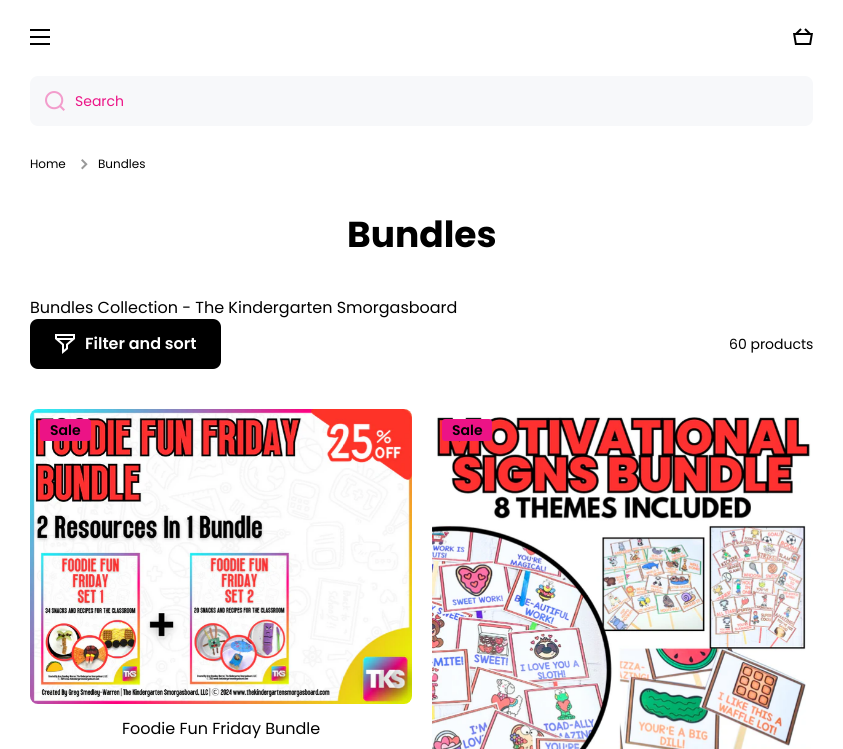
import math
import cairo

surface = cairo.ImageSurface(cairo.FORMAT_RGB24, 843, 749)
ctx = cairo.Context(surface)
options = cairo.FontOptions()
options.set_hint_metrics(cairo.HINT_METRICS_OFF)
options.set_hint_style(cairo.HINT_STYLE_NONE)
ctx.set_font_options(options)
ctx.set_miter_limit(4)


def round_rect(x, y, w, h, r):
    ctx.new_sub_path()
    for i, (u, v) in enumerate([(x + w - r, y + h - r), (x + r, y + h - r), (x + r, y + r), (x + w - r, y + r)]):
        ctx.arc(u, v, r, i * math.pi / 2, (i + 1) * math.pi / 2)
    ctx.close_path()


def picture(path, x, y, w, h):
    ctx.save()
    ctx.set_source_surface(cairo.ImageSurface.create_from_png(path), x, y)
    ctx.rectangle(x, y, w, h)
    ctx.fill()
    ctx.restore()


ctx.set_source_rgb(1, 1, 1)
ctx.paint()
ctx.set_source_rgb(0, 0, 0)
ctx.rectangle(30, 29, 20, 2)
ctx.fill()
ctx.rectangle(30, 36, 20, 2)
ctx.fill()
ctx.rectangle(30, 43, 20, 2)
ctx.fill()
picture("img1.png", 793, 28, 20, 17)
ctx.set_source_rgb(0.965, 0.969, 0.98)
round_rect(30, 76, 783, 50, 8)
ctx.fill()
picture("img2.png", 45, 91, 20, 20)
ctx.select_font_face("Poppins")
ctx.set_font_size(14)
ctx.set_source_rgb(0.925, 0.075, 0.525)
ctx.move_to(75, 106)
ctx.show_text("Search")
ctx.set_font_size(12)
ctx.set_source_rgb(0, 0, 0)
ctx.move_to(30, 168)
ctx.show_text("Home")
picture("img3.png", 81, 159, 7, 11)
ctx.move_to(98, 168)
ctx.show_text("Bundles")
ctx.select_font_face("Poppins", cairo.FONT_SLANT_NORMAL, cairo.FONT_WEIGHT_BOLD)
ctx.set_font_size(36)
ctx.move_to(347, 247)
ctx.show_text("Bundles")
ctx.select_font_face("Poppins")
ctx.set_font_size(16)
ctx.move_to(30, 313)
ctx.show_text("Bundles Collection - The Kindergarten Smorgasboard")
round_rect(30, 319, 191, 50, 8)
ctx.fill()
picture("img4.png", 55, 334, 20, 20)
ctx.select_font_face("Poppins SemiBold")
ctx.set_source_rgb(1, 1, 1)
ctx.move_to(85, 349)
ctx.show_text("Filter and sort")
ctx.select_font_face("Poppins")
ctx.set_font_size(14)
ctx.set_source_rgb(0, 0, 0)
ctx.move_to(729, 349)
ctx.show_text("60 products")
picture("img5.png", 30, 409, 382, 295)
ctx.set_source_rgb(0.925, 0.075, 0.525)
round_rect(40, 419, 51, 22, 3)
ctx.fill()
ctx.select_font_face("Poppins SemiBold")
ctx.set_source_rgb(0, 0, 0)
ctx.move_to(50, 435)
ctx.show_text("Sale")
ctx.select_font_face("Poppins")
ctx.set_font_size(16)
ctx.move_to(122, 734)
ctx.show_text("Foodie Fun Friday Bundle")
picture("img6.png", 432, 416, 379, 333)
ctx.set_source_rgb(0.925, 0.075, 0.525)
round_rect(442, 419, 50, 22, 3)
ctx.fill()
ctx.select_font_face("Poppins SemiBold")
ctx.set_font_size(14)
ctx.set_source_rgb(0, 0, 0)
ctx.move_to(452, 435)
ctx.show_text("Sale")
surface.write_to_png("page.png")
